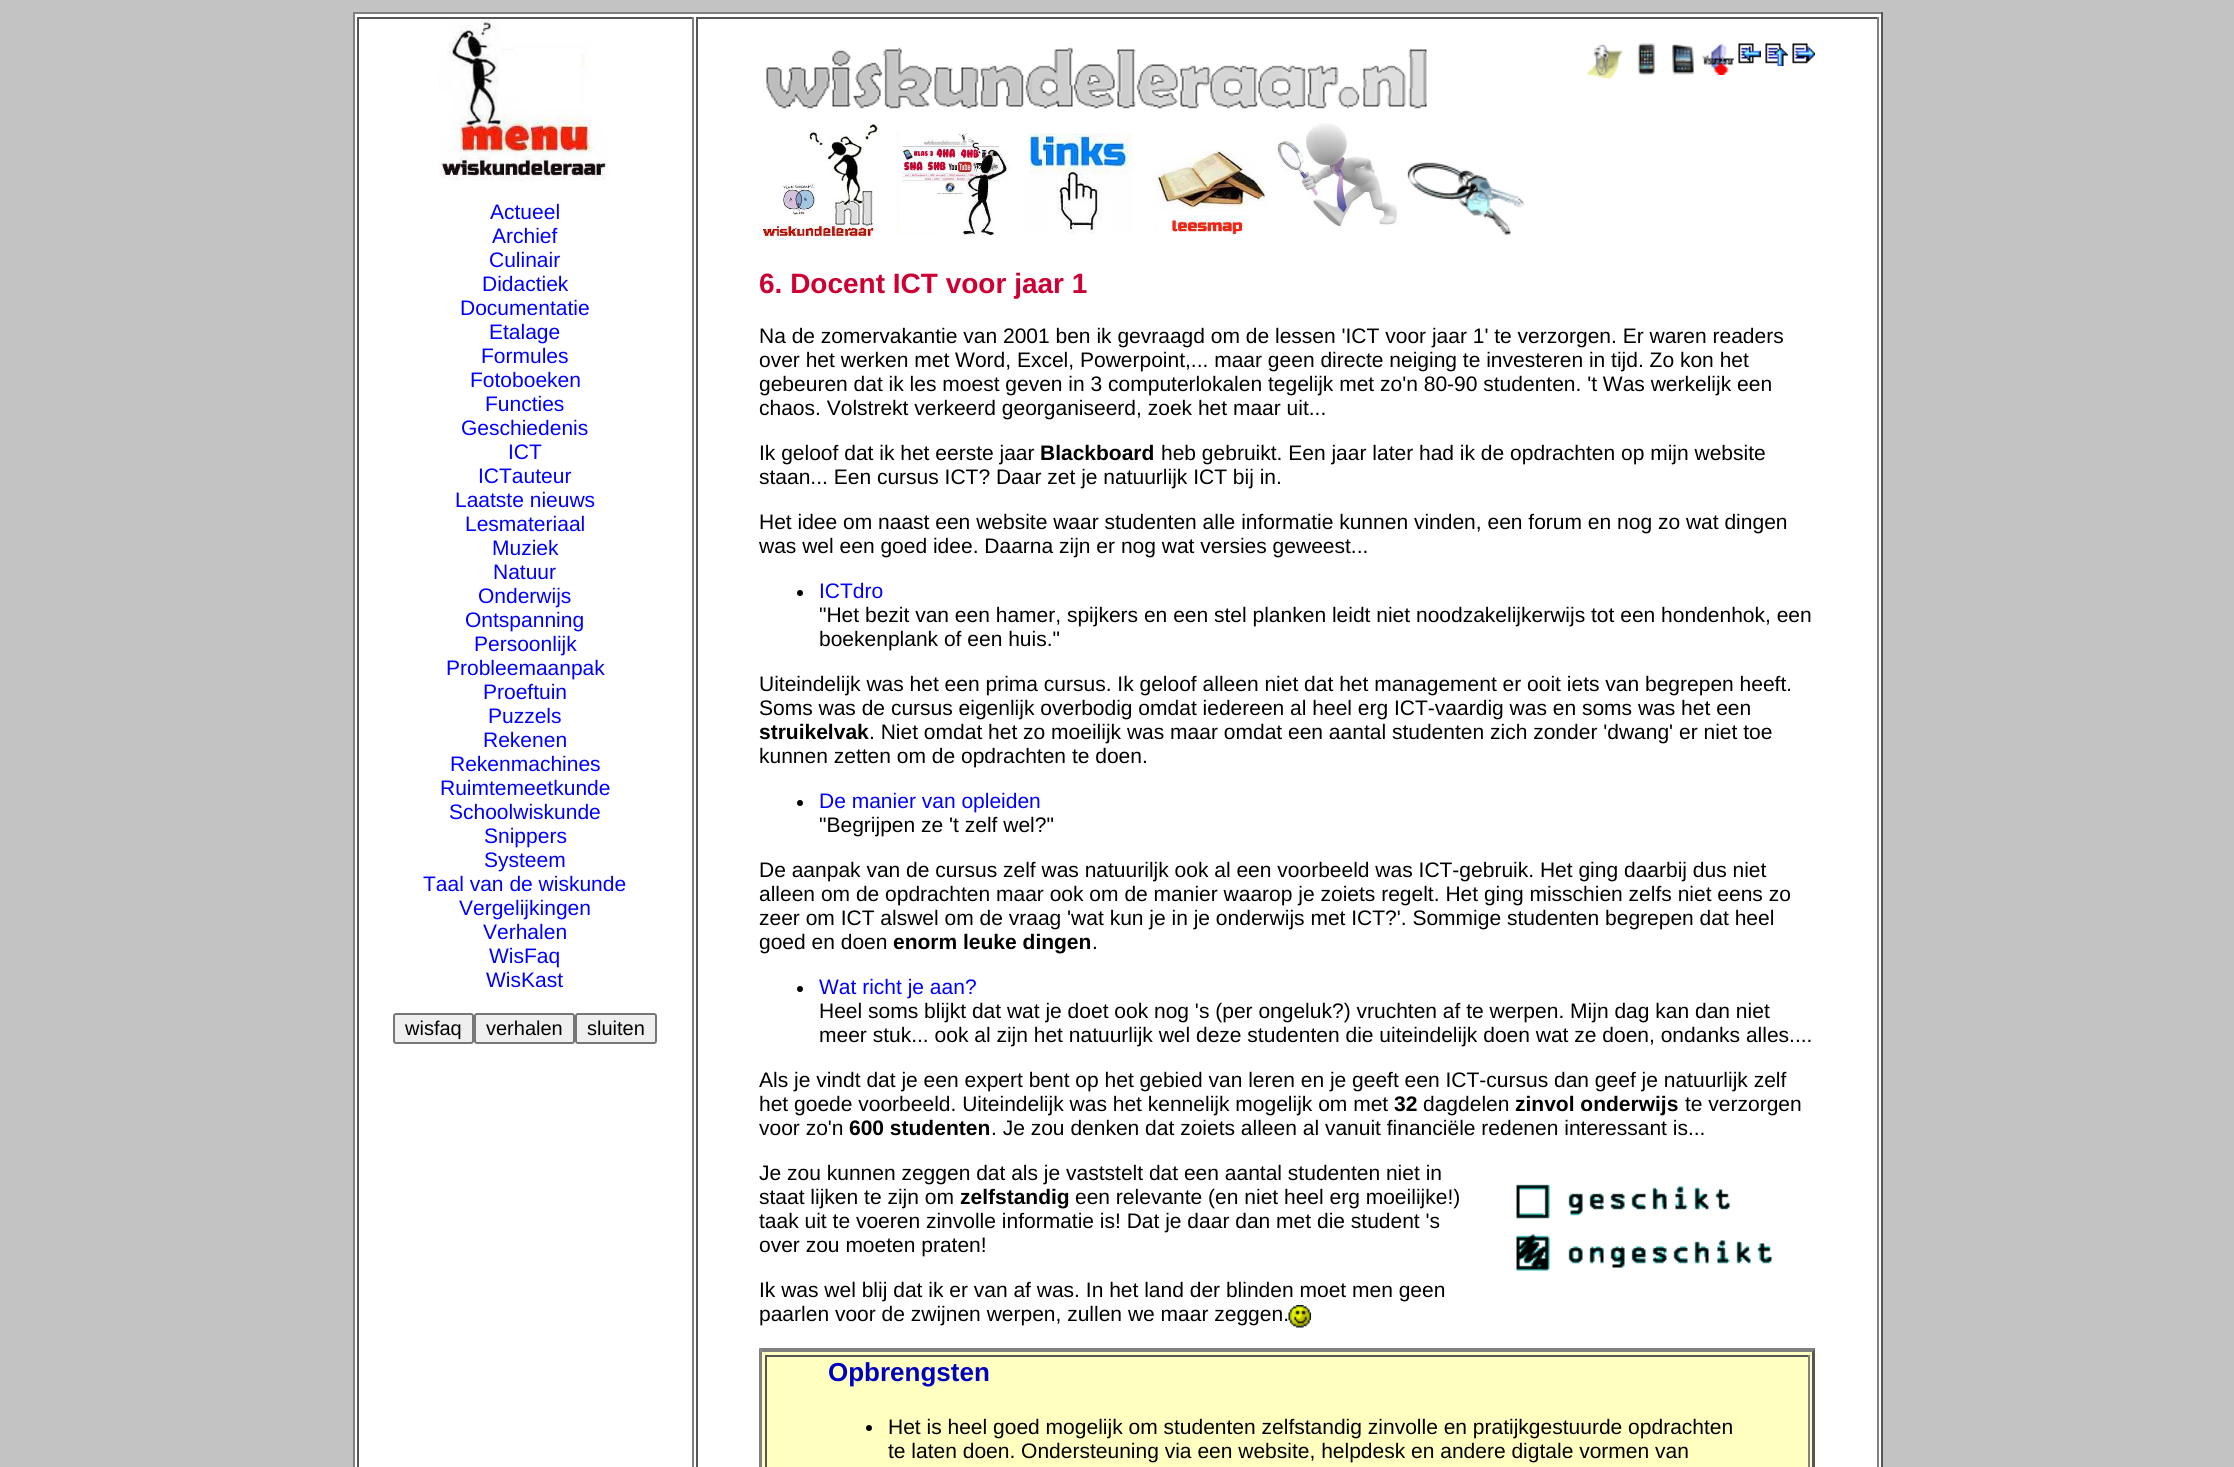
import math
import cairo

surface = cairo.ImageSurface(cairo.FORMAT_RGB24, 2234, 1467)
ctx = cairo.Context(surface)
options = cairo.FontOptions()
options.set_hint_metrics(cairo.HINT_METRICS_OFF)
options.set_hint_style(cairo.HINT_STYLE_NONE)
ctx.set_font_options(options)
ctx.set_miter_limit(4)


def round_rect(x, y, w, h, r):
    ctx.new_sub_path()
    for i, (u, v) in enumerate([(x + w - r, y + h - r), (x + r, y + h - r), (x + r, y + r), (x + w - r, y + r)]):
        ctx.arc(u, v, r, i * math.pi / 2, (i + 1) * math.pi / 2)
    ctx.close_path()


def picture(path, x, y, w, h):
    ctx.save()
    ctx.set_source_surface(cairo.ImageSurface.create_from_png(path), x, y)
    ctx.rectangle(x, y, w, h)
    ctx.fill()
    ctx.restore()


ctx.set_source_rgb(0.765, 0.765, 0.765)
ctx.paint()
ctx.set_source_rgb(1, 1, 1)
ctx.rectangle(355, 14, 1526, 1453)
ctx.fill()
ctx.set_source_rgb(0.502, 0.502, 0.502)
ctx.rectangle(353, 12, 1530, 2)
ctx.fill()
ctx.set_source_rgb(0.333, 0.333, 0.333)
ctx.rectangle(1881, 12, 2, 1455)
ctx.fill()
ctx.set_source_rgb(0.502, 0.502, 0.502)
ctx.rectangle(353, 12, 2, 1455)
ctx.fill()
ctx.set_source_rgb(0.333, 0.333, 0.333)
ctx.rectangle(357, 17, 336, 2)
ctx.fill()
ctx.set_source_rgb(0.502, 0.502, 0.502)
ctx.rectangle(692, 17, 2, 1450)
ctx.fill()
ctx.set_source_rgb(0.333, 0.333, 0.333)
ctx.rectangle(357, 17, 2, 1450)
ctx.fill()
picture("img1.png", 438, 19, 171, 162)
ctx.select_font_face("Liberation Sans")
ctx.set_font_size(21)
ctx.set_source_rgb(0, 0, 1)
ctx.move_to(490, 219)
ctx.show_text("Actueel")
ctx.move_to(492, 243)
ctx.show_text("Archief")
ctx.move_to(489, 267)
ctx.show_text("Culinair")
ctx.move_to(482, 291)
ctx.show_text("Didactiek")
ctx.move_to(460, 315)
ctx.show_text("Documentatie")
ctx.move_to(489, 339)
ctx.show_text("Etalage")
ctx.move_to(481, 363)
ctx.show_text("Formules")
ctx.move_to(470, 387)
ctx.show_text("Fotoboeken")
ctx.move_to(485, 411)
ctx.show_text("Functies")
ctx.move_to(461, 435)
ctx.show_text("Geschiedenis")
ctx.move_to(508, 459)
ctx.show_text("ICT")
ctx.move_to(478, 483)
ctx.show_text("ICTauteur")
ctx.move_to(455, 507)
ctx.show_text("Laatste nieuws")
ctx.move_to(465, 531)
ctx.show_text("Lesmateriaal")
ctx.move_to(492, 555)
ctx.show_text("Muziek")
ctx.move_to(493, 579)
ctx.show_text("Natuur")
ctx.move_to(478, 603)
ctx.show_text("Onderwijs")
ctx.move_to(465, 627)
ctx.show_text("Ontspanning")
ctx.move_to(474, 651)
ctx.show_text("Persoonlijk")
ctx.move_to(446, 675)
ctx.show_text("Probleemaanpak")
ctx.move_to(483, 699)
ctx.show_text("Proeftuin")
ctx.move_to(488, 723)
ctx.show_text("Puzzels")
ctx.move_to(483, 747)
ctx.show_text("Rekenen")
ctx.move_to(450, 771)
ctx.show_text("Rekenmachines")
ctx.move_to(440, 795)
ctx.show_text("Ruimtemeetkunde")
ctx.move_to(449, 819)
ctx.show_text("Schoolwiskunde")
ctx.move_to(484, 843)
ctx.show_text("Snippers")
ctx.move_to(484, 867)
ctx.show_text("Systeem")
ctx.move_to(423, 891)
ctx.show_text("Taal van de wiskunde")
ctx.move_to(459, 915)
ctx.show_text("Vergelijkingen")
ctx.move_to(483, 939)
ctx.show_text("Verhalen")
ctx.move_to(489, 963)
ctx.show_text("WisFaq")
ctx.move_to(486, 987)
ctx.show_text("WisKast")
ctx.set_source_rgb(0.937, 0.937, 0.937)
round_rect(394, 1014, 79, 29, 2)
ctx.fill_preserve()
ctx.set_source_rgb(0.463, 0.463, 0.463)
ctx.stroke()
ctx.set_font_size(20)
ctx.set_source_rgb(0, 0, 0)
ctx.move_to(405, 1035)
ctx.show_text("wisfaq")
ctx.set_source_rgb(0.937, 0.937, 0.937)
round_rect(475, 1014, 99, 29, 2)
ctx.fill_preserve()
ctx.set_source_rgb(0.463, 0.463, 0.463)
ctx.stroke()
ctx.set_source_rgb(0, 0, 0)
ctx.move_to(486, 1035)
ctx.show_text("verhalen")
ctx.set_source_rgb(0.937, 0.937, 0.937)
round_rect(576, 1014, 80, 29, 2)
ctx.fill_preserve()
ctx.set_source_rgb(0.463, 0.463, 0.463)
ctx.stroke()
ctx.set_source_rgb(0, 0, 0)
ctx.move_to(587, 1035)
ctx.show_text("sluiten")
ctx.set_source_rgb(0.333, 0.333, 0.333)
ctx.rectangle(696, 17, 1182, 2)
ctx.fill()
ctx.set_source_rgb(0.502, 0.502, 0.502)
ctx.rectangle(1877, 17, 2, 1450)
ctx.fill()
ctx.set_source_rgb(0.333, 0.333, 0.333)
ctx.rectangle(696, 17, 2, 1450)
ctx.fill()
picture("img2.png", 766, 47, 661, 62)
picture("img3.png", 1586, 44, 38, 36)
picture("img4.png", 1637, 43, 18, 32)
picture("img5.png", 1672, 44, 22, 31)
picture("img6.png", 1702, 43, 32, 32)
picture("img7.png", 1738, 43, 23, 21)
picture("img8.png", 1765, 43, 23, 23)
picture("img9.png", 1792, 43, 23, 21)
picture("img10.png", 759, 121, 120, 119)
picture("img11.png", 896, 133, 115, 103)
picture("img12.png", 1025, 133, 108, 101)
picture("img13.png", 1154, 150, 115, 90)
picture("img14.png", 1275, 123, 123, 105)
picture("img15.png", 1407, 162, 118, 73)
ctx.select_font_face("Liberation Sans", cairo.FONT_SLANT_NORMAL, cairo.FONT_WEIGHT_BOLD)
ctx.set_font_size(28)
ctx.set_source_rgb(0.8, 0, 0.2)
ctx.move_to(759, 293)
ctx.show_text("6. Docent ICT voor jaar 1")
ctx.select_font_face("Liberation Sans")
ctx.set_font_size(21)
ctx.set_source_rgb(0, 0, 0)
ctx.move_to(759, 343)
ctx.show_text("Na de zomervakantie van 2001 ben ik gevraagd om de lessen 'ICT voor jaar 1' te verzorgen. Er waren readers")
ctx.move_to(759, 367)
ctx.show_text("over het werken met Word, Excel, Powerpoint,... maar geen directe neiging te investeren in tijd. Zo kon het")
ctx.move_to(759, 391)
ctx.show_text("gebeuren dat ik les moest geven in 3 computerlokalen tegelijk met zo'n 80-90 studenten. 't Was werkelijk een")
ctx.move_to(759, 415)
ctx.show_text("chaos. Volstrekt verkeerd georganiseerd, zoek het maar uit...")
ctx.move_to(759, 460)
ctx.show_text("Ik geloof dat ik het eerste jaar")
ctx.select_font_face("Liberation Sans", cairo.FONT_SLANT_NORMAL, cairo.FONT_WEIGHT_BOLD)
ctx.move_to(1040, 460)
ctx.show_text("Blackboard")
ctx.select_font_face("Liberation Sans")
ctx.move_to(1161, 460)
ctx.show_text("heb gebruikt. Een jaar later had ik de opdrachten op mijn website")
ctx.move_to(759, 484)
ctx.show_text("staan... Een cursus ICT? Daar zet je natuurlijk ICT bij in.")
ctx.move_to(759, 529)
ctx.show_text("Het idee om naast een website waar studenten alle informatie kunnen vinden, een forum en nog zo wat dingen")
ctx.move_to(759, 553)
ctx.show_text("was wel een goed idee. Daarna zijn er nog wat versies geweest...")
ctx.new_path()
ctx.arc(800, 593, 3, 0, 2 * math.pi)
ctx.fill()
ctx.set_source_rgb(0, 0, 1)
ctx.move_to(819, 598)
ctx.show_text("ICTdro")
ctx.set_source_rgb(0, 0, 0)
ctx.move_to(819, 622)
ctx.show_text("\"Het bezit van een hamer, spijkers en een stel planken leidt niet noodzakelijkerwijs tot een hondenhok, een")
ctx.move_to(819, 646)
ctx.show_text("boekenplank of een huis.\"")
ctx.move_to(759, 691)
ctx.show_text("Uiteindelijk was het een prima cursus. Ik geloof alleen niet dat het management er ooit iets van begrepen heeft.")
ctx.move_to(759, 715)
ctx.show_text("Soms was de cursus eigenlijk overbodig omdat iedereen al heel erg ICT-vaardig was en soms was het een")
ctx.select_font_face("Liberation Sans", cairo.FONT_SLANT_NORMAL, cairo.FONT_WEIGHT_BOLD)
ctx.move_to(759, 739)
ctx.show_text("struikelvak")
ctx.select_font_face("Liberation Sans")
ctx.move_to(869, 739)
ctx.show_text(". Niet omdat het zo moeilijk was maar omdat een aantal studenten zich zonder 'dwang' er niet toe")
ctx.move_to(759, 763)
ctx.show_text("kunnen zetten om de opdrachten te doen.")
ctx.new_path()
ctx.arc(800, 803, 3, 0, 2 * math.pi)
ctx.fill()
ctx.set_source_rgb(0, 0, 1)
ctx.move_to(819, 808)
ctx.show_text("De manier van opleiden")
ctx.set_source_rgb(0, 0, 0)
ctx.move_to(819, 832)
ctx.show_text("\"Begrijpen ze 't zelf wel?\"")
ctx.move_to(759, 877)
ctx.show_text("De aanpak van de cursus zelf was natuuriljk ook al een voorbeeld was ICT-gebruik. Het ging daarbij dus niet")
ctx.move_to(759, 901)
ctx.show_text("alleen om de opdrachten maar ook om de manier waarop je zoiets regelt. Het ging misschien zelfs niet eens zo")
ctx.move_to(759, 925)
ctx.show_text("zeer om ICT alswel om de vraag 'wat kun je in je onderwijs met ICT?'. Sommige studenten begrepen dat heel")
ctx.move_to(759, 949)
ctx.show_text("goed en doen")
ctx.select_font_face("Liberation Sans", cairo.FONT_SLANT_NORMAL, cairo.FONT_WEIGHT_BOLD)
ctx.move_to(893, 949)
ctx.show_text("enorm leuke dingen")
ctx.select_font_face("Liberation Sans")
ctx.move_to(1092, 949)
ctx.show_text(".")
ctx.new_path()
ctx.arc(800, 989, 3, 0, 2 * math.pi)
ctx.fill()
ctx.set_source_rgb(0, 0, 1)
ctx.move_to(819, 994)
ctx.show_text("Wat richt je aan?")
ctx.set_source_rgb(0, 0, 0)
ctx.move_to(819, 1018)
ctx.show_text("Heel soms blijkt dat wat je doet ook nog 's (per ongeluk?) vruchten af te werpen. Mijn dag kan dan niet")
ctx.move_to(819, 1042)
ctx.show_text("meer stuk... ook al zijn het natuurlijk wel deze studenten die uiteindelijk doen wat ze doen, ondanks alles....")
ctx.move_to(759, 1087)
ctx.show_text("Als je vindt dat je een expert bent op het gebied van leren en je geeft een ICT-cursus dan geef je natuurlijk zelf")
ctx.move_to(759, 1111)
ctx.show_text("het goede voorbeeld. Uiteindelijk was het kennelijk mogelijk om met")
ctx.select_font_face("Liberation Sans", cairo.FONT_SLANT_NORMAL, cairo.FONT_WEIGHT_BOLD)
ctx.move_to(1394, 1111)
ctx.show_text("32")
ctx.select_font_face("Liberation Sans")
ctx.move_to(1423, 1111)
ctx.show_text("dagdelen")
ctx.select_font_face("Liberation Sans", cairo.FONT_SLANT_NORMAL, cairo.FONT_WEIGHT_BOLD)
ctx.move_to(1515, 1111)
ctx.show_text("zinvol onderwijs")
ctx.select_font_face("Liberation Sans")
ctx.move_to(1685, 1111)
ctx.show_text("te verzorgen")
ctx.move_to(759, 1135)
ctx.show_text("voor zo'n")
ctx.select_font_face("Liberation Sans", cairo.FONT_SLANT_NORMAL, cairo.FONT_WEIGHT_BOLD)
ctx.move_to(849, 1135)
ctx.show_text("600 studenten")
ctx.select_font_face("Liberation Sans")
ctx.move_to(991, 1135)
ctx.show_text(". Je zou denken dat zoiets alleen al vanuit financiële redenen interessant is...")
ctx.move_to(759, 1180)
ctx.show_text("Je zou kunnen zeggen dat als je vaststelt dat een aantal studenten niet in")
ctx.move_to(759, 1204)
ctx.show_text("staat lijken te zijn om")
ctx.select_font_face("Liberation Sans", cairo.FONT_SLANT_NORMAL, cairo.FONT_WEIGHT_BOLD)
ctx.move_to(960, 1204)
ctx.show_text("zelfstandig")
ctx.select_font_face("Liberation Sans")
ctx.move_to(1075, 1204)
ctx.show_text("een relevante (en niet heel erg moeilijke!)")
ctx.move_to(759, 1228)
ctx.show_text("taak uit te voeren zinvolle informatie is! Dat je daar dan met die student 's")
ctx.move_to(759, 1252)
ctx.show_text("over zou moeten praten!")
picture("img16.png", 1516, 1184, 256, 87)
ctx.move_to(759, 1297)
ctx.show_text("Ik was wel blij dat ik er van af was. In het land der blinden moet men geen")
ctx.move_to(759, 1321)
ctx.show_text("paarlen voor de zwijnen werpen, zullen we maar zeggen.")
picture("img17.png", 1288, 1305, 23, 23)
ctx.set_source_rgb(1, 1, 0.749)
ctx.rectangle(759, 1349, 1056, 118)
ctx.fill()
ctx.set_source_rgb(0.502, 0.502, 0.502)
ctx.new_path()
ctx.move_to(759, 1348)
ctx.line_to(1815, 1348)
ctx.line_to(1812, 1352)
ctx.line_to(762, 1352)
ctx.close_path()
ctx.fill()
ctx.set_source_rgb(0.333, 0.333, 0.333)
ctx.new_path()
ctx.move_to(1815, 1348)
ctx.line_to(1815, 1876)
ctx.line_to(1812, 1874)
ctx.line_to(1812, 1352)
ctx.close_path()
ctx.fill()
ctx.set_source_rgb(0.502, 0.502, 0.502)
ctx.new_path()
ctx.move_to(759, 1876)
ctx.line_to(759, 1348)
ctx.line_to(762, 1352)
ctx.line_to(762, 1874)
ctx.close_path()
ctx.fill()
ctx.set_source_rgb(0.333, 0.333, 0.333)
ctx.rectangle(765, 1355, 1044, 2)
ctx.fill()
ctx.set_source_rgb(0.502, 0.502, 0.502)
ctx.rectangle(1808, 1355, 2, 112)
ctx.fill()
ctx.set_source_rgb(0.333, 0.333, 0.333)
ctx.rectangle(765, 1355, 2, 112)
ctx.fill()
ctx.select_font_face("Liberation Sans", cairo.FONT_SLANT_NORMAL, cairo.FONT_WEIGHT_BOLD)
ctx.set_font_size(26)
ctx.set_source_rgb(0, 0, 0.753)
ctx.move_to(828, 1381)
ctx.show_text("Opbrengsten")
ctx.set_source_rgb(0, 0, 0)
ctx.new_path()
ctx.arc(869, 1428, 3, 0, 2 * math.pi)
ctx.fill()
ctx.select_font_face("Liberation Sans")
ctx.set_font_size(21)
ctx.move_to(888, 1434)
ctx.show_text("Het is heel goed mogelijk om studenten zelfstandig zinvolle en pratijkgestuurde opdrachten")
ctx.move_to(888, 1458)
ctx.show_text("te laten doen. Ondersteuning via een website, helpdesk en andere digtale vormen van")
surface.write_to_png("page.png")
